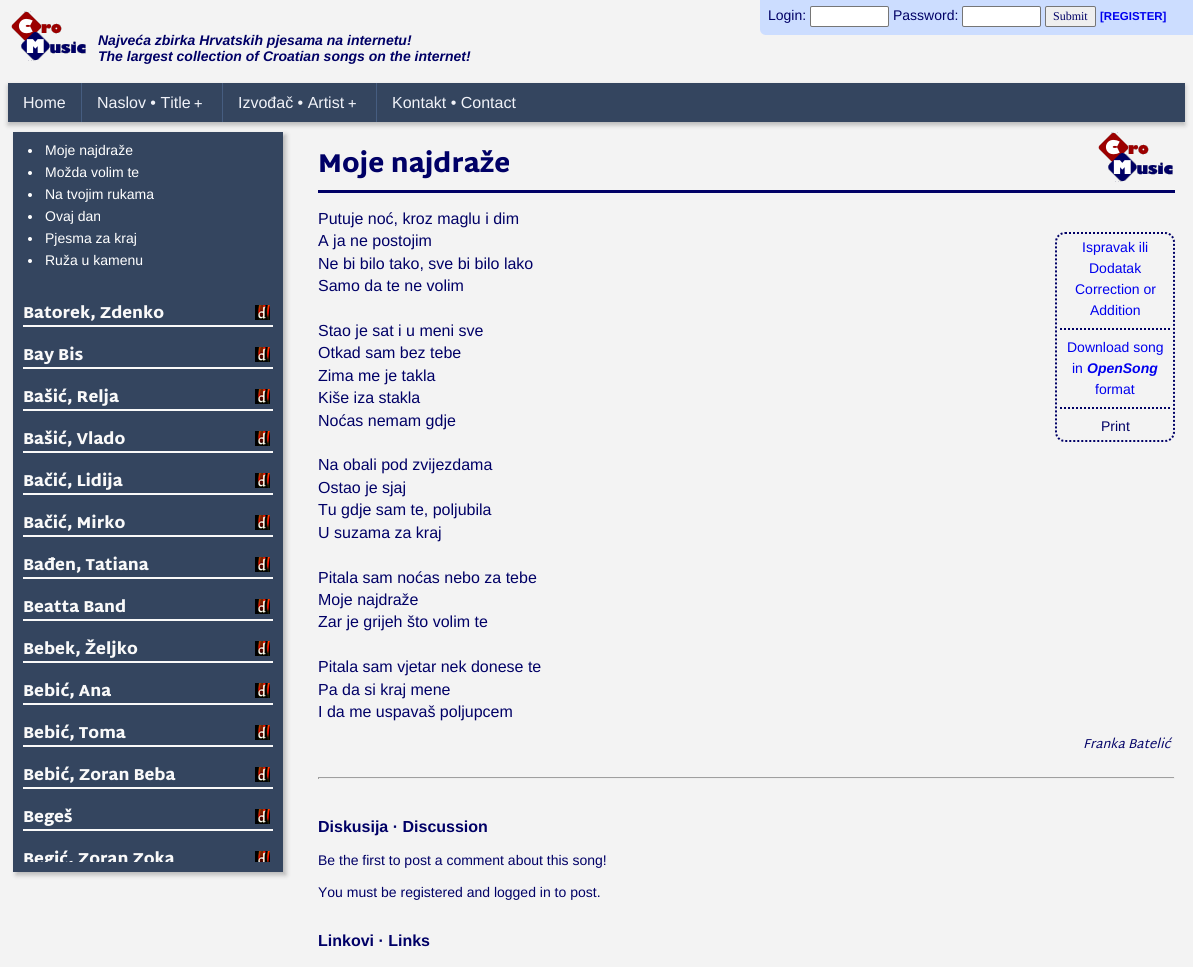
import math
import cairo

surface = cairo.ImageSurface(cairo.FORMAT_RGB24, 1193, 967)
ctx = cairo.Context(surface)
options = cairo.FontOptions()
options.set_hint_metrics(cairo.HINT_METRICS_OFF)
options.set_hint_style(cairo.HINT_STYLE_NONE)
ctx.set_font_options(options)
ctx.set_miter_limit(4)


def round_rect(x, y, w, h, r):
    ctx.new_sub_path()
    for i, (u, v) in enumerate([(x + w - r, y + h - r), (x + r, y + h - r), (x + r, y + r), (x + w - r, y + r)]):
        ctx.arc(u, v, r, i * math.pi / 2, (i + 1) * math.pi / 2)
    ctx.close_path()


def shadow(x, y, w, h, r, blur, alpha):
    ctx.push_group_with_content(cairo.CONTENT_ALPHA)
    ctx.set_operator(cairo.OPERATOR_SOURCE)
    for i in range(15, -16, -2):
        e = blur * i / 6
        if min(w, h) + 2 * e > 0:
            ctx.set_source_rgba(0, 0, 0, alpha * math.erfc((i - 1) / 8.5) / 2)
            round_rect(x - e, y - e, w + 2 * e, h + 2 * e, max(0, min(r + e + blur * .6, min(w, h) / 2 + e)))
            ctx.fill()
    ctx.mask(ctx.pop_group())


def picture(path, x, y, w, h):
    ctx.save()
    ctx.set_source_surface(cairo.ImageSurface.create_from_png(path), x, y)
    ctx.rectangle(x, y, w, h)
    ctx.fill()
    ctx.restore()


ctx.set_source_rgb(0.953, 0.953, 0.953)
ctx.paint()
ctx.set_source_rgb(0.8, 0.867, 1)
ctx.new_path()
ctx.move_to(760, 0)
ctx.line_to(1193, 0)
ctx.line_to(1193, 35)
ctx.line_to(766, 35)
ctx.curve_to(762.5, 35, 760, 32.5, 760, 29)
ctx.close_path()
ctx.fill()
ctx.select_font_face("Liberation Sans")
ctx.set_font_size(14)
ctx.set_source_rgb(0, 0, 0.4)
ctx.move_to(768, 20)
ctx.show_text("Login:")
ctx.set_source_rgb(1, 1, 1)
round_rect(810.5, 6.5, 78, 20, 1.5)
ctx.fill_preserve()
ctx.set_source_rgb(0.463, 0.463, 0.463)
ctx.set_line_width(1)
ctx.stroke()
ctx.set_source_rgb(0, 0, 0.4)
ctx.move_to(893, 20)
ctx.show_text("Password:")
ctx.set_source_rgb(1, 1, 1)
round_rect(962.5, 6.5, 78, 20, 1.5)
ctx.fill_preserve()
ctx.set_source_rgb(0.463, 0.463, 0.463)
ctx.stroke()
ctx.set_source_rgb(0.937, 0.937, 0.937)
round_rect(1045.5, 6.5, 50, 20, 1.5)
ctx.fill_preserve()
ctx.set_source_rgb(0.463, 0.463, 0.463)
ctx.stroke()
ctx.select_font_face("Liberation Serif")
ctx.set_font_size(12)
ctx.set_source_rgb(0, 0, 0.4)
ctx.move_to(1053, 20)
ctx.show_text("Submit")
ctx.select_font_face("Liberation Sans", cairo.FONT_SLANT_NORMAL, cairo.FONT_WEIGHT_BOLD)
ctx.set_font_size(11.5)
ctx.set_source_rgb(0, 0, 0.933)
ctx.move_to(1100, 20)
ctx.show_text("[REGISTER]")
picture("img1.png", 11, 11, 75, 50)
ctx.select_font_face("Liberation Sans", cairo.FONT_SLANT_ITALIC, cairo.FONT_WEIGHT_BOLD)
ctx.set_font_size(14)
ctx.set_source_rgb(0, 0, 0.4)
ctx.move_to(98, 45)
ctx.show_text("Najveća zbirka Hrvatskih pjesama na internetu!")
ctx.move_to(98, 61)
ctx.show_text("The largest collection of Croatian songs on the internet!")
ctx.set_source_rgb(0, 0, 0)
shadow(8, 86, 1177, 39, 0, 2.5, 0.25)
ctx.set_source_rgb(0.204, 0.271, 0.373)
ctx.rectangle(8, 83, 1177, 39)
ctx.fill()
ctx.select_font_face("Liberation Sans")
ctx.set_font_size(16)
ctx.set_source_rgb(0.941, 0.949, 0.969)
ctx.move_to(23, 108)
ctx.show_text("Home")
ctx.set_source_rgb(0.275, 0.365, 0.502)
ctx.rectangle(81, 83, 1, 39)
ctx.fill()
ctx.set_source_rgb(0.941, 0.949, 0.969)
ctx.move_to(97, 108)
ctx.show_text("Naslov • Title")
ctx.select_font_face("DejaVu Sans Mono")
ctx.set_font_size(14)
ctx.move_to(194, 108)
ctx.show_text("+")
ctx.set_source_rgb(0.275, 0.365, 0.502)
ctx.rectangle(222, 83, 1, 39)
ctx.fill()
ctx.select_font_face("Liberation Sans")
ctx.set_font_size(16)
ctx.set_source_rgb(0.941, 0.949, 0.969)
ctx.move_to(238, 108)
ctx.show_text("Izvođač • Artist")
ctx.select_font_face("DejaVu Sans Mono")
ctx.set_font_size(14)
ctx.move_to(348, 108)
ctx.show_text("+")
ctx.set_source_rgb(0.275, 0.365, 0.502)
ctx.rectangle(376, 83, 1, 39)
ctx.fill()
ctx.select_font_face("Liberation Sans")
ctx.set_font_size(16)
ctx.set_source_rgb(0.941, 0.949, 0.969)
ctx.move_to(392, 108)
ctx.show_text("Kontakt • Contact")
ctx.set_source_rgb(0, 0, 0)
shadow(16, 135, 270, 740, 0, 2.5, 0.25)
ctx.set_source_rgb(0.204, 0.271, 0.373)
ctx.rectangle(13, 132, 270, 740)
ctx.fill()
ctx.set_source_rgb(1, 1, 1)
ctx.arc(30, 151, 2, 0, 2 * math.pi)
ctx.fill()
ctx.set_font_size(14)
ctx.move_to(45, 155)
ctx.show_text("Moje najdraže")
ctx.new_path()
ctx.arc(30, 173, 2, 0, 2 * math.pi)
ctx.fill()
ctx.move_to(45, 177)
ctx.show_text("Možda volim te")
ctx.new_path()
ctx.arc(30, 195, 2, 0, 2 * math.pi)
ctx.fill()
ctx.move_to(45, 199)
ctx.show_text("Na tvojim rukama")
ctx.new_path()
ctx.arc(30, 217, 2, 0, 2 * math.pi)
ctx.fill()
ctx.move_to(45, 221)
ctx.show_text("Ovaj dan")
ctx.new_path()
ctx.arc(30, 239, 2, 0, 2 * math.pi)
ctx.fill()
ctx.move_to(45, 243)
ctx.show_text("Pjesma za kraj")
ctx.new_path()
ctx.arc(30, 261, 2, 0, 2 * math.pi)
ctx.fill()
ctx.move_to(45, 265)
ctx.show_text("Ruža u kamenu")
ctx.set_source_rgb(0.973, 0.973, 0.973)
ctx.rectangle(23, 325, 250, 2)
ctx.fill()
ctx.select_font_face("Martel Sans Black")
ctx.set_font_size(16)
ctx.move_to(23, 318)
ctx.show_text("Batorek, Zdenko")
picture("img2.png", 255, 305, 15, 15)
ctx.rectangle(23, 367, 250, 2)
ctx.fill()
ctx.move_to(23, 360)
ctx.show_text("Bay Bis")
picture("img2.png", 255, 347, 15, 15)
ctx.rectangle(23, 409, 250, 2)
ctx.fill()
ctx.move_to(23, 402)
ctx.show_text("Bašić, Relja")
picture("img2.png", 255, 389, 15, 15)
ctx.rectangle(23, 451, 250, 2)
ctx.fill()
ctx.move_to(23, 444)
ctx.show_text("Bašić, Vlado")
picture("img2.png", 255, 431, 15, 15)
ctx.rectangle(23, 493, 250, 2)
ctx.fill()
ctx.move_to(23, 486)
ctx.show_text("Bačić, Lidija")
picture("img2.png", 255, 473, 15, 15)
ctx.rectangle(23, 535, 250, 2)
ctx.fill()
ctx.move_to(23, 528)
ctx.show_text("Bačić, Mirko")
picture("img2.png", 255, 515, 15, 15)
ctx.rectangle(23, 577, 250, 2)
ctx.fill()
ctx.move_to(23, 570)
ctx.show_text("Bađen, Tatiana")
picture("img2.png", 255, 557, 15, 15)
ctx.rectangle(23, 619, 250, 2)
ctx.fill()
ctx.move_to(23, 612)
ctx.show_text("Beatta Band")
picture("img2.png", 255, 599, 15, 15)
ctx.rectangle(23, 661, 250, 2)
ctx.fill()
ctx.move_to(23, 654)
ctx.show_text("Bebek, Željko")
picture("img2.png", 255, 641, 15, 15)
ctx.rectangle(23, 703, 250, 2)
ctx.fill()
ctx.move_to(23, 696)
ctx.show_text("Bebić, Ana")
picture("img2.png", 255, 683, 15, 15)
ctx.rectangle(23, 745, 250, 2)
ctx.fill()
ctx.move_to(23, 738)
ctx.show_text("Bebić, Toma")
picture("img2.png", 255, 725, 15, 15)
ctx.rectangle(23, 787, 250, 2)
ctx.fill()
ctx.move_to(23, 780)
ctx.show_text("Bebić, Zoran Beba")
picture("img2.png", 255, 767, 15, 15)
ctx.rectangle(23, 829, 250, 2)
ctx.fill()
ctx.move_to(23, 822)
ctx.show_text("Begeš")
picture("img2.png", 255, 809, 15, 15)
ctx.save()
ctx.rectangle(23, 142, 250, 720)
ctx.clip()
ctx.move_to(23, 864)
ctx.show_text("Begić, Zoran Zoka")
ctx.restore()
picture("img3.png", 255, 851, 15, 11)
ctx.set_source_rgb(0, 0, 0.4)
ctx.rectangle(318, 190, 857, 3)
ctx.fill()
ctx.set_font_size(26)
ctx.move_to(318, 172)
ctx.show_text("Moje najdraže")
picture("img1.png", 1098, 132, 75, 50)
ctx.select_font_face("Liberation Sans")
ctx.set_font_size(16)
ctx.move_to(318, 224)
ctx.show_text("Putuje noć, kroz maglu i dim")
ctx.move_to(318, 246)
ctx.show_text("A ja ne postojim")
ctx.move_to(318, 269)
ctx.show_text("Ne bi bilo tako, sve bi bilo lako")
ctx.move_to(318, 291)
ctx.show_text("Samo da te ne volim")
ctx.move_to(318, 336)
ctx.show_text("Stao je sat i u meni sve")
ctx.move_to(318, 358)
ctx.show_text("Otkad sam bez tebe")
ctx.move_to(318, 381)
ctx.show_text("Zima me je takla")
ctx.move_to(318, 403)
ctx.show_text("Kiše iza stakla")
ctx.move_to(318, 426)
ctx.show_text("Noćas nemam gdje")
ctx.move_to(318, 470)
ctx.show_text("Na obali pod zvijezdama")
ctx.move_to(318, 493)
ctx.show_text("Ostao je sjaj")
ctx.move_to(318, 515)
ctx.show_text("Tu gdje sam te, poljubila")
ctx.move_to(318, 538)
ctx.show_text("U suzama za kraj")
ctx.move_to(318, 583)
ctx.show_text("Pitala sam noćas nebo za tebe")
ctx.move_to(318, 605)
ctx.show_text("Moje najdraže")
ctx.move_to(318, 627)
ctx.show_text("Zar je grijeh što volim te")
ctx.move_to(318, 672)
ctx.show_text("Pitala sam vjetar nek donese te")
ctx.move_to(318, 695)
ctx.show_text("Pa da si kraj mene")
ctx.move_to(318, 717)
ctx.show_text("I da me uspavaš poljupcem")
ctx.select_font_face("Martel Sans", cairo.FONT_SLANT_ITALIC)
ctx.set_font_size(13)
ctx.move_to(1083, 748)
ctx.show_text("Franka Batelić")
ctx.new_path()
ctx.move_to(1065, 233)
ctx.line_to(1165, 233)
ctx.curve_to(1170, 233, 1174, 237, 1174, 242)
ctx.line_to(1174, 432)
ctx.curve_to(1174, 437, 1170, 441, 1165, 441)
ctx.line_to(1065, 441)
ctx.curve_to(1060, 441, 1056, 437, 1056, 432)
ctx.line_to(1056, 242)
ctx.curve_to(1056, 237, 1060, 233, 1065, 233)
ctx.close_path()
ctx.set_line_width(2)
ctx.set_dash([2, 2])
ctx.stroke()
ctx.select_font_face("Liberation Sans")
ctx.set_font_size(14)
ctx.set_source_rgb(0, 0, 0.933)
ctx.move_to(1082, 252)
ctx.show_text("Ispravak ili")
ctx.move_to(1089, 273)
ctx.show_text("Dodatak")
ctx.move_to(1075, 294)
ctx.show_text("Correction or")
ctx.move_to(1090, 315)
ctx.show_text("Addition")
ctx.new_path()
ctx.move_to(1060, 329)
ctx.line_to(1170, 329)
ctx.set_source_rgb(0, 0, 0.4)
ctx.stroke()
ctx.set_source_rgb(0, 0, 0.933)
ctx.move_to(1067, 352)
ctx.show_text("Download song")
ctx.move_to(1072, 373)
ctx.show_text("in")
ctx.select_font_face("Liberation Sans", cairo.FONT_SLANT_ITALIC, cairo.FONT_WEIGHT_BOLD)
ctx.move_to(1087, 373)
ctx.show_text("OpenSong")
ctx.select_font_face("Liberation Sans")
ctx.move_to(1095, 394)
ctx.show_text("format")
ctx.new_path()
ctx.move_to(1060, 408)
ctx.line_to(1170, 408)
ctx.set_source_rgb(0, 0, 0.4)
ctx.stroke()
ctx.move_to(1101, 431)
ctx.show_text("Print")
ctx.set_source_rgb(0.624, 0.624, 0.624)
ctx.rectangle(318, 777, 857, 1)
ctx.fill()
ctx.set_source_rgb(0.933, 0.933, 0.933)
ctx.rectangle(1174, 777, 1, 2)
ctx.fill()
ctx.rectangle(318, 778, 857, 1)
ctx.fill()
ctx.set_source_rgb(0.624, 0.624, 0.624)
ctx.rectangle(318, 777, 1, 2)
ctx.fill()
ctx.select_font_face("Liberation Sans", cairo.FONT_SLANT_NORMAL, cairo.FONT_WEIGHT_BOLD)
ctx.set_font_size(16)
ctx.set_source_rgb(0, 0, 0.4)
ctx.move_to(318, 832)
ctx.show_text("Diskusija · Discussion")
ctx.select_font_face("Liberation Sans")
ctx.set_font_size(14)
ctx.move_to(318, 865)
ctx.show_text("Be the first to post a comment about this song!")
ctx.move_to(318, 897)
ctx.show_text("You must be registered and logged in to post.")
ctx.select_font_face("Liberation Sans", cairo.FONT_SLANT_NORMAL, cairo.FONT_WEIGHT_BOLD)
ctx.set_font_size(16)
ctx.move_to(318, 946)
ctx.show_text("Linkovi · Links")
surface.write_to_png("page.png")
